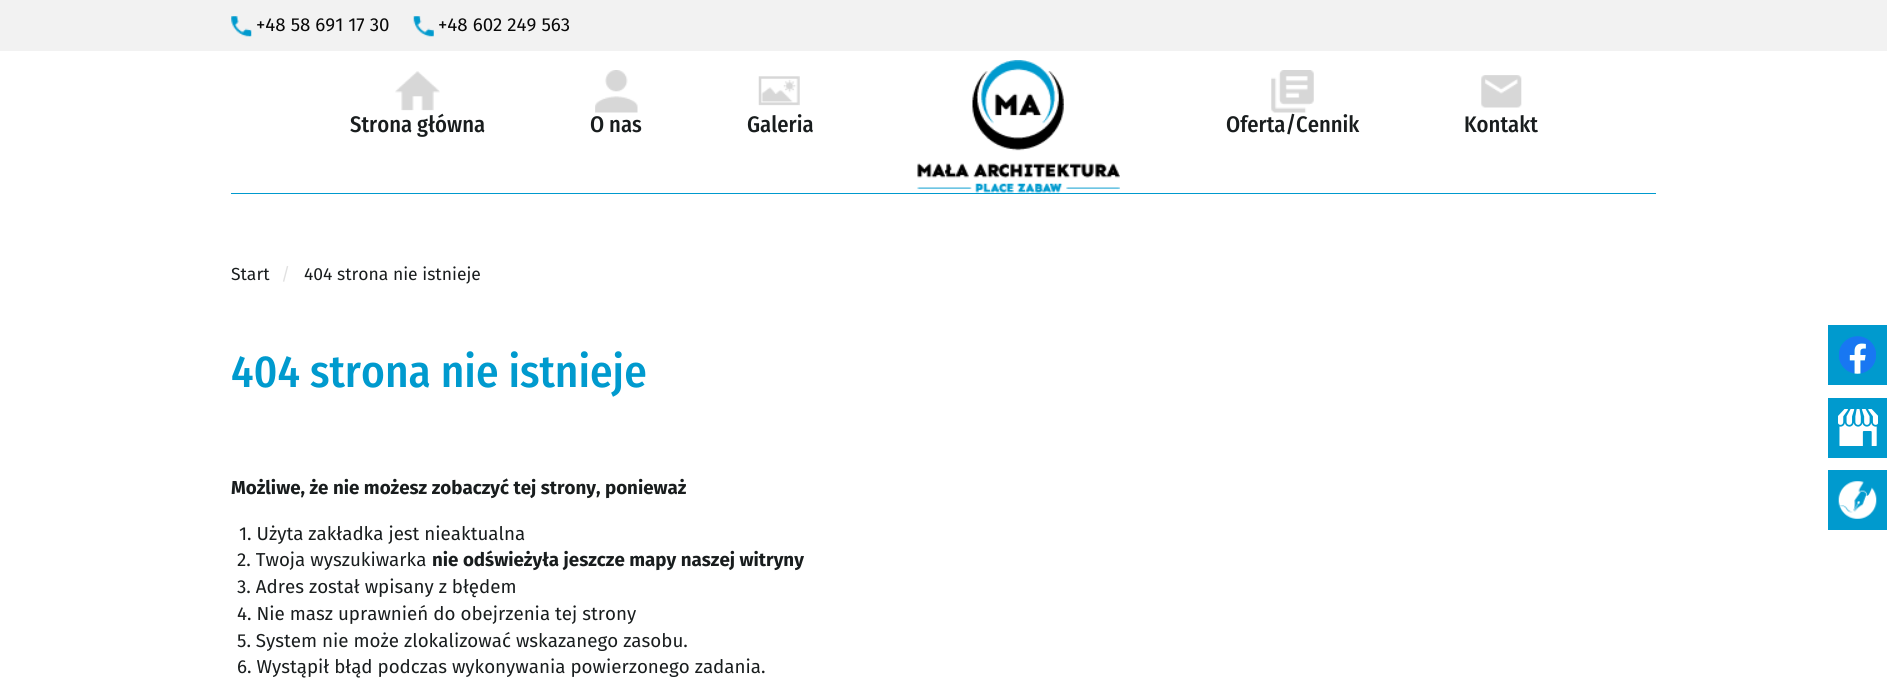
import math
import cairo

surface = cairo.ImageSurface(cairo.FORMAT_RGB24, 1887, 698)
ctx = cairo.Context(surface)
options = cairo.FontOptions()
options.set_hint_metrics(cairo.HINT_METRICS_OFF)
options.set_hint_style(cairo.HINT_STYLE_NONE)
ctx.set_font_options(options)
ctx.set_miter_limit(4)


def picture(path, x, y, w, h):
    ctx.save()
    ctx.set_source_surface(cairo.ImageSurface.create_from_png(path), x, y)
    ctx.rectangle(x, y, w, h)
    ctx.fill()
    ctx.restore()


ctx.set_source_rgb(1, 1, 1)
ctx.paint()
ctx.set_source_rgb(0.949, 0.949, 0.949)
ctx.rectangle(0, 0, 1887, 51)
ctx.fill()
picture("img1.png", 231, 16, 21, 21)
ctx.select_font_face("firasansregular")
ctx.set_font_size(18.75)
ctx.set_source_rgb(0.039, 0.039, 0.039)
ctx.move_to(256, 31)
ctx.show_text("+48 58 691 17 30")
picture("img2.png", 413, 16, 21, 21)
ctx.move_to(438, 31)
ctx.show_text("+48 602 249 563")
ctx.set_source_rgb(0, 0.604, 0.808)
ctx.rectangle(231, 193, 1425, 1)
ctx.fill()
picture("img3.png", 395, 71, 45, 40)
ctx.select_font_face("Fira Sans Condensed Medium")
ctx.set_font_size(22.5)
ctx.set_source_rgb(0.098, 0.114, 0.118)
ctx.move_to(350, 132)
ctx.show_text("Strona główna")
picture("img4.png", 595, 70, 43, 43)
ctx.move_to(590, 132)
ctx.show_text("O nas")
picture("img5.png", 758, 76, 42, 30)
ctx.move_to(747, 132)
ctx.show_text("Galeria")
picture("img6.png", 917, 60, 203, 133)
picture("img7.png", 1271, 70, 43, 43)
ctx.move_to(1226, 132)
ctx.show_text("Oferta/Cennik")
picture("img8.png", 1481, 75, 41, 33)
ctx.move_to(1464, 132)
ctx.show_text("Kontakt")
ctx.select_font_face("firasansregular")
ctx.set_font_size(17.5)
ctx.move_to(231, 280)
ctx.show_text("Start")
ctx.set_source_rgb(0.882, 0.882, 0.882)
ctx.move_to(281, 280)
ctx.show_text("/")
ctx.set_source_rgb(0.098, 0.114, 0.118)
ctx.move_to(304, 280)
ctx.show_text("404 strona nie istnieje")
ctx.select_font_face("Fira Sans Condensed Medium")
ctx.set_font_size(45)
ctx.set_source_rgb(0, 0.604, 0.808)
ctx.move_to(231, 387)
ctx.show_text("404 strona nie istnieje")
ctx.rectangle(1828, 325, 59, 60)
ctx.fill()
picture("img9.png", 1839, 336, 37, 38)
ctx.rectangle(1828, 398, 59, 60)
ctx.fill()
picture("img10.png", 1838, 409, 40, 37)
ctx.rectangle(1828, 470, 59, 60)
ctx.fill()
picture("img11.png", 1838, 481, 39, 38)
ctx.select_font_face("Fira Sans", cairo.FONT_SLANT_NORMAL, cairo.FONT_WEIGHT_BOLD)
ctx.set_font_size(18.75)
ctx.set_source_rgb(0.098, 0.114, 0.118)
ctx.move_to(231, 494)
ctx.show_text("Możliwe, że nie możesz zobaczyć tej strony, ponieważ")
ctx.select_font_face("firasansregular")
ctx.move_to(239, 540)
ctx.show_text("1. Użyta zakładka jest nieaktualna")
ctx.move_to(237, 566)
ctx.show_text("2. Twoja wyszukiwarka")
ctx.select_font_face("Fira Sans", cairo.FONT_SLANT_NORMAL, cairo.FONT_WEIGHT_BOLD)
ctx.move_to(432, 566)
ctx.show_text("nie odświeżyła jeszcze mapy naszej witryny")
ctx.select_font_face("firasansregular")
ctx.move_to(237, 593)
ctx.show_text("3. Adres został wpisany z błędem")
ctx.move_to(237, 620)
ctx.show_text("4. Nie masz uprawnień do obejrzenia tej strony")
ctx.move_to(237, 647)
ctx.show_text("5. System nie może zlokalizować wskazanego zasobu.")
ctx.move_to(237, 673)
ctx.show_text("6. Wystąpił błąd podczas wykonywania powierzonego zadania.")
surface.write_to_png("page.png")
